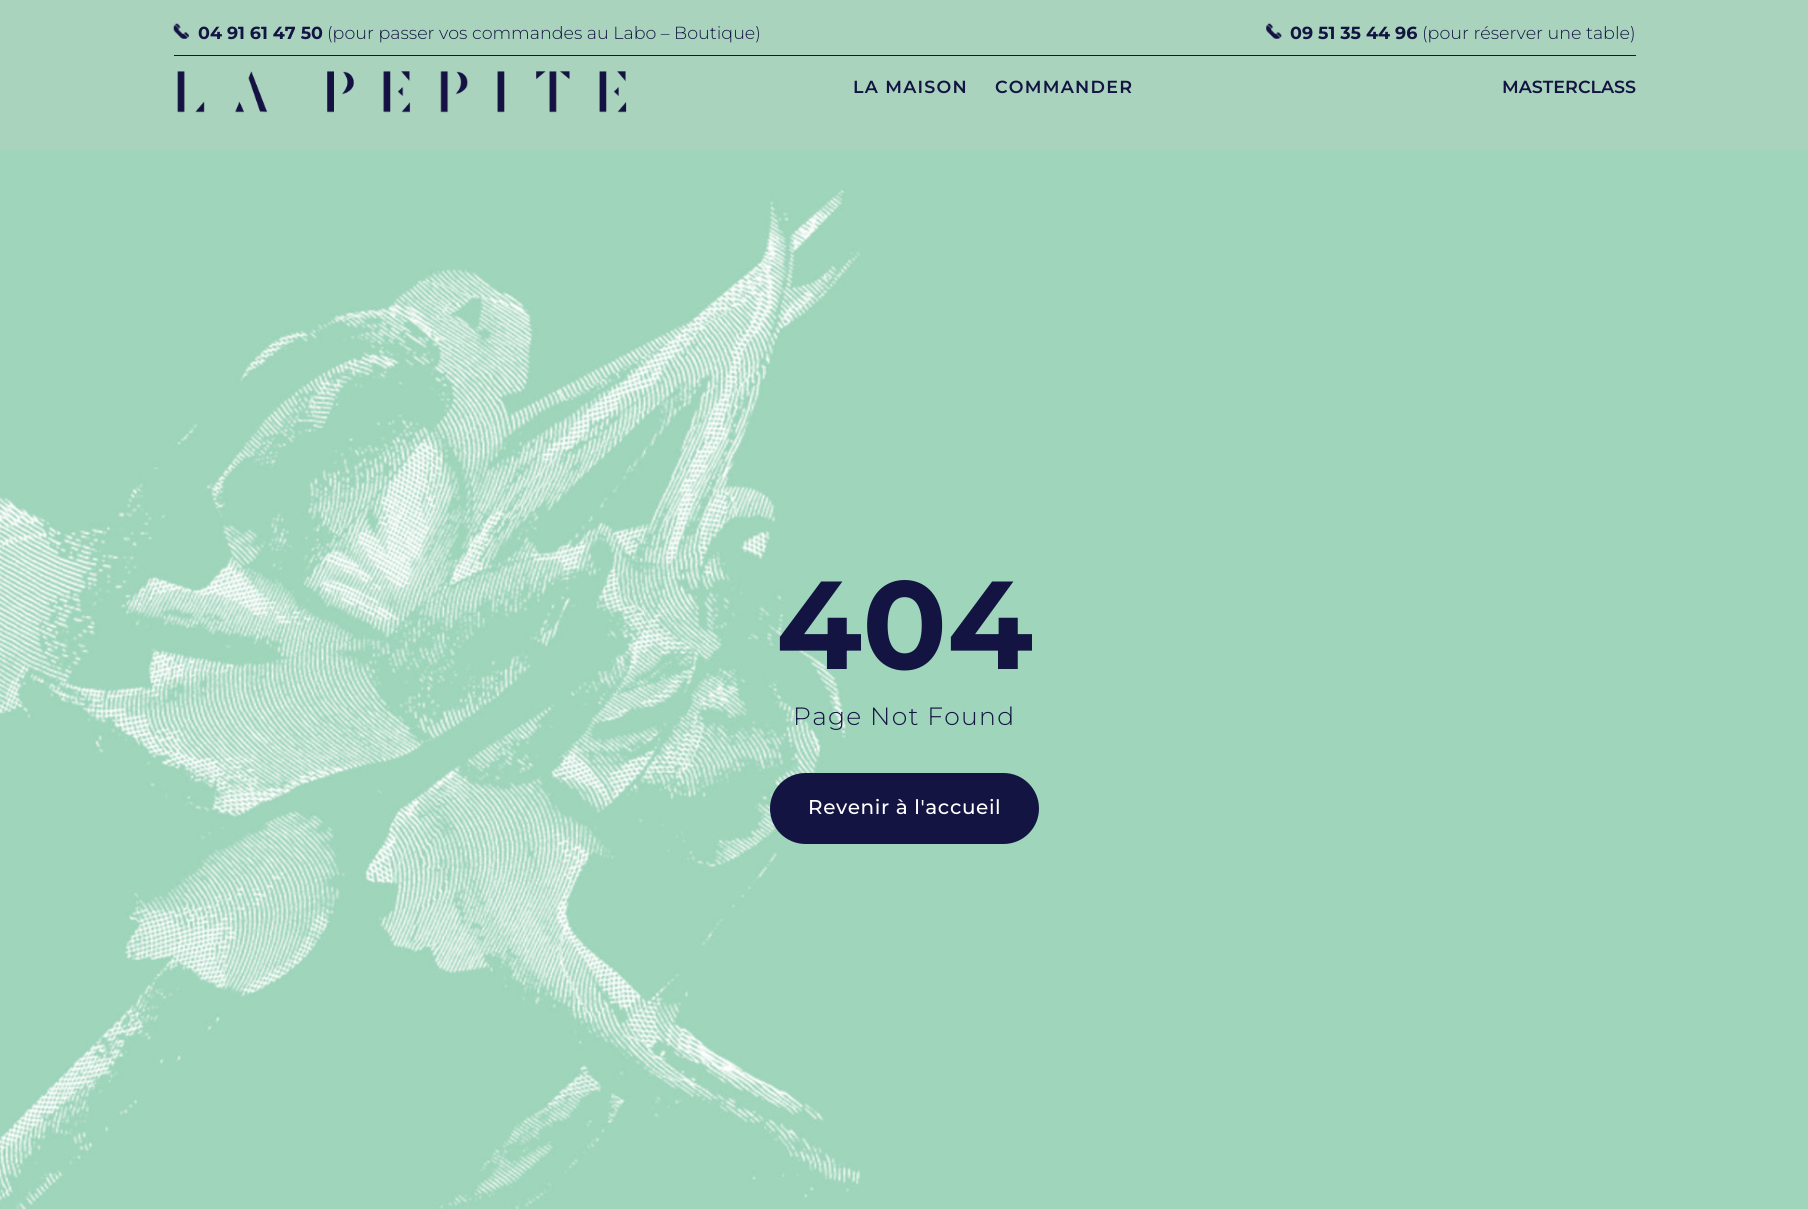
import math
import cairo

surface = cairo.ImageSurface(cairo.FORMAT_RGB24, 1808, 1209)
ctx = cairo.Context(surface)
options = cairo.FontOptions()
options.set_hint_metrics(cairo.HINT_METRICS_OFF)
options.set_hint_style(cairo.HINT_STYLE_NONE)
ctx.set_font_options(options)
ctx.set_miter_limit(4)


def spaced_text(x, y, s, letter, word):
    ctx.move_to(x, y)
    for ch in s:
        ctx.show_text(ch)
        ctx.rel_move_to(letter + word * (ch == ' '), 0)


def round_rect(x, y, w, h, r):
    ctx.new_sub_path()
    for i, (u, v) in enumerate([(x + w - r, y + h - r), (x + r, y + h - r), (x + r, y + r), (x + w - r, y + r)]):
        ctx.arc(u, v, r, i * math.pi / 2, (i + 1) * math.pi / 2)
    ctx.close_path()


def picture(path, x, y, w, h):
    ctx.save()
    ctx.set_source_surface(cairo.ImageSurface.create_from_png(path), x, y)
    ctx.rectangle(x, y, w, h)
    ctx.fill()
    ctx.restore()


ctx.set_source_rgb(1, 1, 1)
ctx.paint()
ctx.set_source_rgb(0.663, 0.827, 0.741)
ctx.rectangle(0, 0, 1808, 150)
ctx.fill()
ctx.set_source_rgb(0.078, 0.082, 0.259)
ctx.rectangle(174, 55, 1462, 1)
ctx.fill()
picture("img1.png", 173, 23, 16, 16)
ctx.select_font_face("Montserrat Thin")
ctx.set_font_size(17.5)
ctx.move_to(198, 39)
ctx.show_text("04 91 61 47 50")
ctx.select_font_face("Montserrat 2 Thin")
ctx.move_to(327, 39)
ctx.show_text("(pour passer vos commandes au Labo – Boutique)")
picture("img2.png", 1266, 23, 16, 16)
ctx.select_font_face("Montserrat Thin")
ctx.move_to(1290, 39)
ctx.show_text("09 51 35 44 96")
ctx.select_font_face("Montserrat 2 Thin")
ctx.move_to(1422, 39)
ctx.show_text("(pour réserver une table)")
picture("img3.png", 177, 71, 450, 42)
ctx.select_font_face("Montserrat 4 Thin")
spaced_text(853, 93, "LA MAISON", 1.25, 0)
spaced_text(995, 93, "COMMANDER", 1.25, 0)
ctx.move_to(1502, 93)
ctx.show_text("MASTERCLASS")
picture("img4.png", 0, 150, 1808, 1059)
ctx.select_font_face("Montserrat Thin")
ctx.set_font_size(125)
ctx.move_to(776, 669)
ctx.show_text("404")
ctx.select_font_face("Montserrat 2 Thin")
ctx.set_font_size(25)
spaced_text(793, 725, "Page Not Found", 1.25, 0)
round_rect(770, 773, 269, 71, 35.5)
ctx.fill()
ctx.select_font_face("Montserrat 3 Thin")
ctx.set_font_size(20)
ctx.set_source_rgb(1, 1, 1)
spaced_text(808, 814, "Revenir à l'accueil", 0.6, 0)
surface.write_to_png("page.png")
